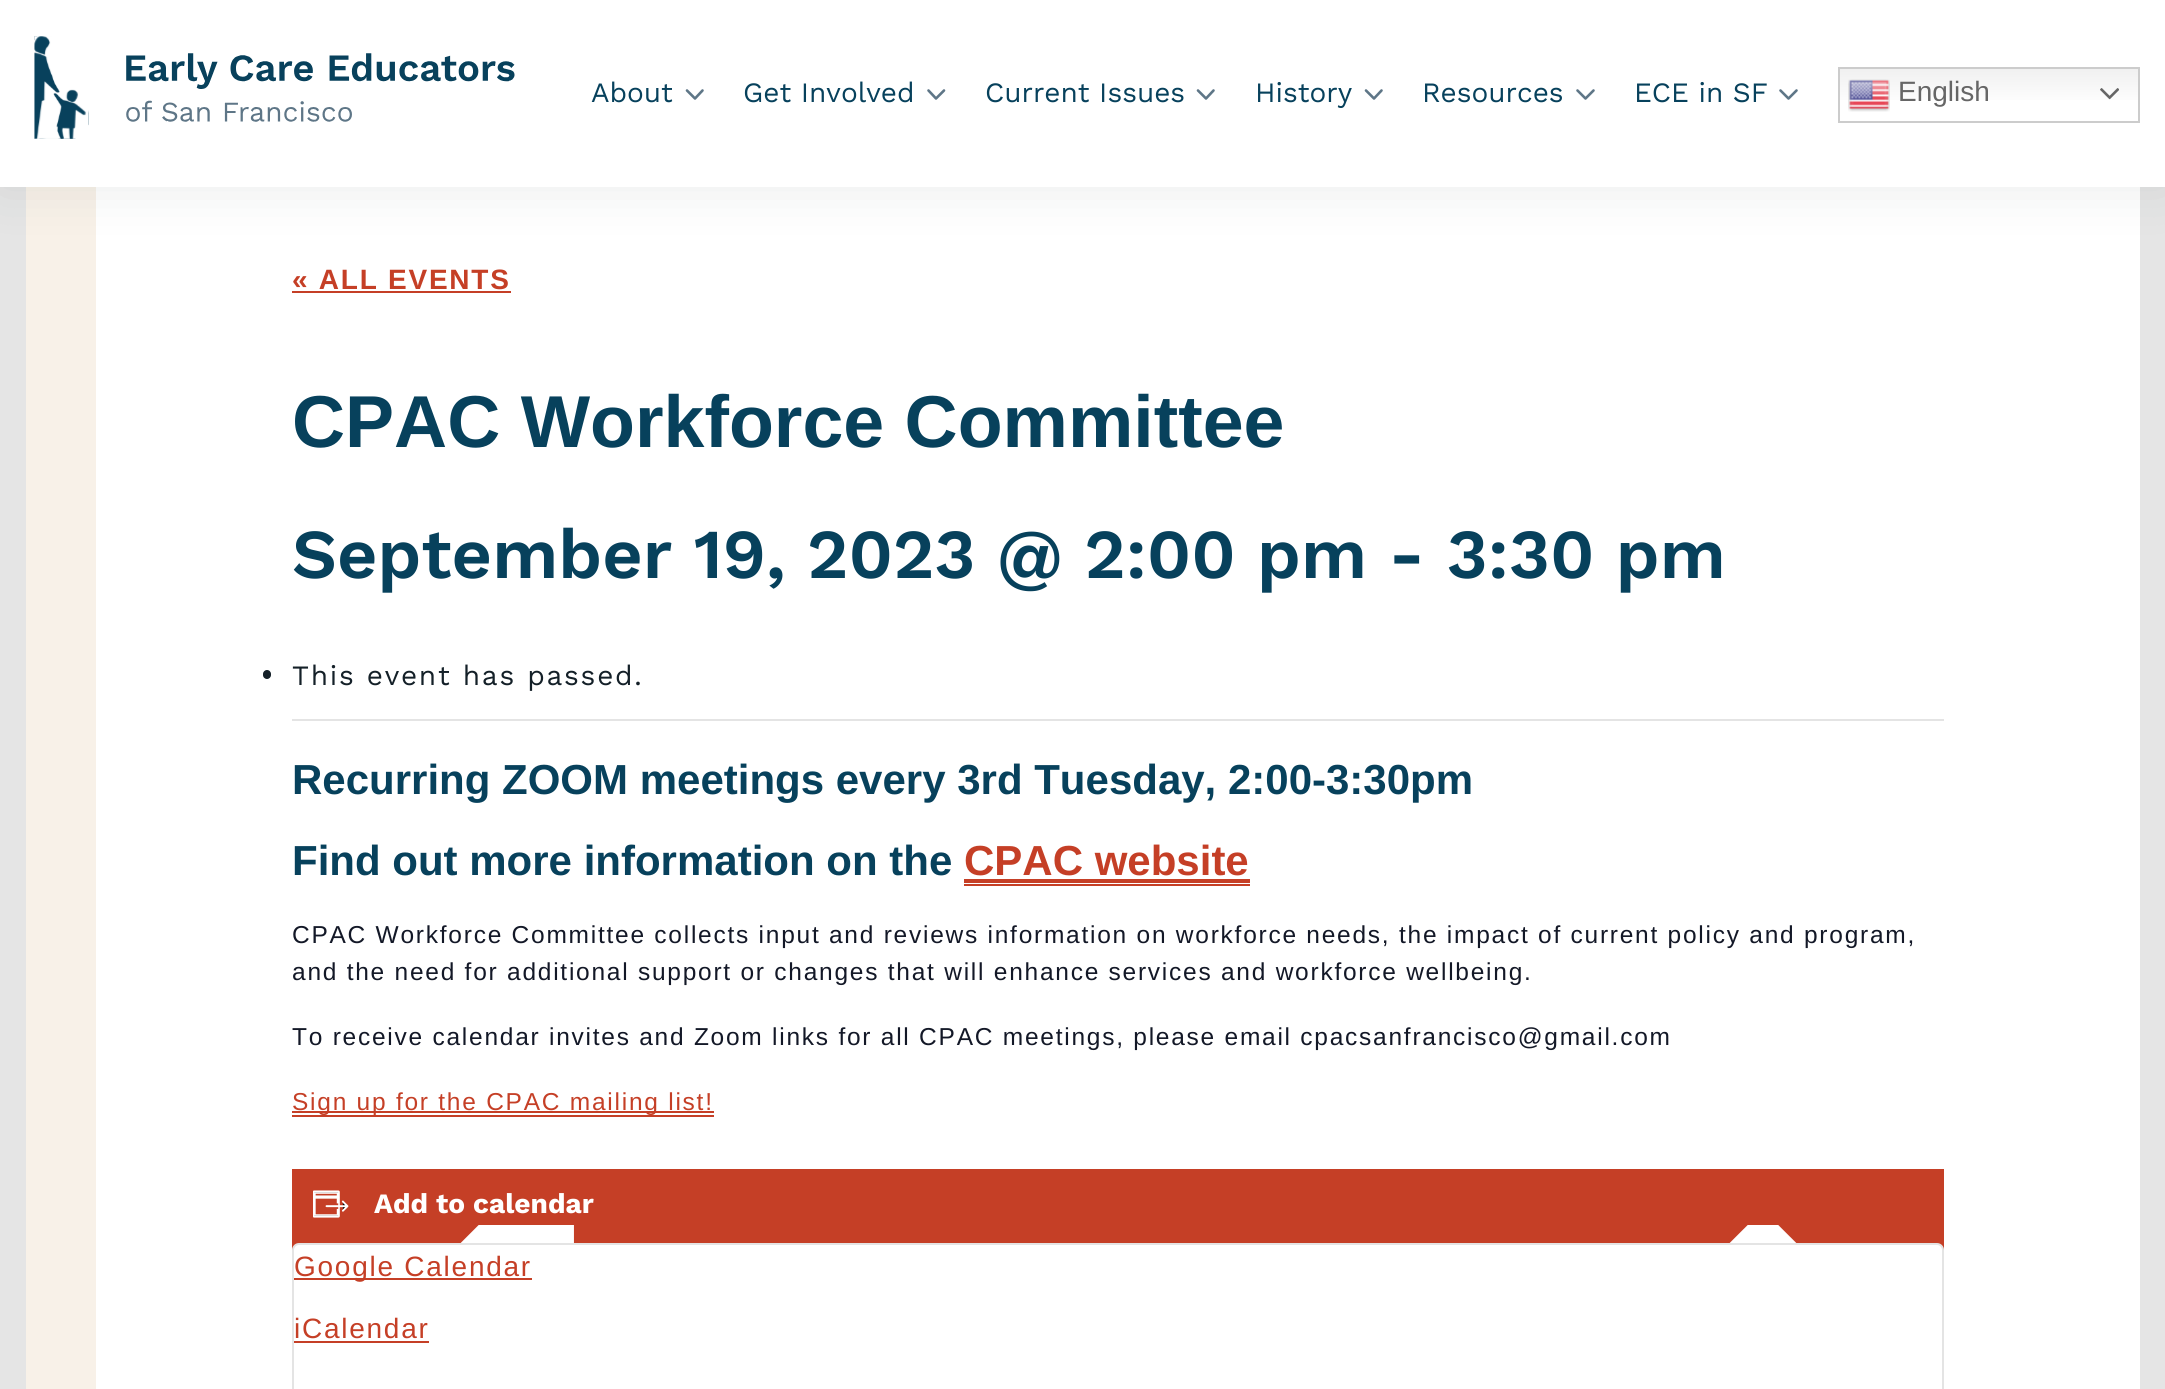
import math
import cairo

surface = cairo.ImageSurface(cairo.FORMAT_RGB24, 2165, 1389)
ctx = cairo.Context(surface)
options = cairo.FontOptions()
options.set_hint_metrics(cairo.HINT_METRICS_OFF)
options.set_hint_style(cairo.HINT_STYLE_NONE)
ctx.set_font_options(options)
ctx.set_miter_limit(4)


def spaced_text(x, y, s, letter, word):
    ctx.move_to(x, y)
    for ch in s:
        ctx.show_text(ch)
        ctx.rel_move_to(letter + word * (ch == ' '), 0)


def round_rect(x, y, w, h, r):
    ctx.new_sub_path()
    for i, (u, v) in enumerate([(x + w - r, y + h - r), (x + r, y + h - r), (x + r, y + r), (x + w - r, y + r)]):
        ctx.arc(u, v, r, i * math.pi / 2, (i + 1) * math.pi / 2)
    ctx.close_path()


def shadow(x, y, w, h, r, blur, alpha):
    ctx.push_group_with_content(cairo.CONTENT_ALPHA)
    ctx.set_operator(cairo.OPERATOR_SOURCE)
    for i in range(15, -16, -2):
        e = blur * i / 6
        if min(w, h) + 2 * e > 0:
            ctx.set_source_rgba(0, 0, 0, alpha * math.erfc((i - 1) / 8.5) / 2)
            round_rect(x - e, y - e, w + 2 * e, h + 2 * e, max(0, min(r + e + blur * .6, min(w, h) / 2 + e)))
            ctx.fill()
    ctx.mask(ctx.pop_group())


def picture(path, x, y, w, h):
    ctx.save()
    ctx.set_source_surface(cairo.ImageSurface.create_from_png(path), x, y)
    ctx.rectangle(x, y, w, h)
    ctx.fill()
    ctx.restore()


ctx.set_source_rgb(0.898, 0.898, 0.898)
ctx.paint()
ctx.set_source_rgb(1, 1, 1)
ctx.rectangle(96, 187, 2044, 1202)
ctx.fill()
ctx.set_source_rgb(0.969, 0.945, 0.91)
ctx.rectangle(26, 187, 70, 1202)
ctx.fill()
ctx.set_source_rgb(0.082, 0.125, 0.157)
shadow(0, 0, 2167, 187, 0, 26, 0.1)
ctx.set_source_rgb(1, 1, 1)
ctx.rectangle(0, 0, 2165, 187)
ctx.fill()
picture("img1.png", 34, 36, 481, 103)
ctx.select_font_face("Work Sans")
ctx.set_font_size(28)
ctx.set_source_rgb(0.031, 0.255, 0.361)
ctx.move_to(591, 102)
ctx.show_text("About")
ctx.new_path()
ctx.move_to(687, 90.5)
ctx.line_to(695, 98.5)
ctx.line_to(702.5, 90.5)
ctx.set_source_rgb(0.369, 0.463, 0.529)
ctx.set_line_width(2.6)
ctx.set_line_cap(cairo.LINE_CAP_ROUND)
ctx.set_line_join(cairo.LINE_JOIN_ROUND)
ctx.stroke()
ctx.set_source_rgb(0.031, 0.255, 0.361)
ctx.move_to(743, 102)
ctx.show_text("Get Involved")
ctx.new_path()
ctx.move_to(928.5, 90.5)
ctx.line_to(936, 98.5)
ctx.line_to(944, 90.5)
ctx.set_source_rgb(0.369, 0.463, 0.529)
ctx.stroke()
ctx.set_source_rgb(0.031, 0.255, 0.361)
ctx.move_to(985, 102)
ctx.show_text("Current Issues")
ctx.new_path()
ctx.move_to(1198, 90.5)
ctx.line_to(1206, 98.5)
ctx.line_to(1213.5, 90.5)
ctx.set_source_rgb(0.369, 0.463, 0.529)
ctx.stroke()
ctx.set_source_rgb(0.031, 0.255, 0.361)
ctx.move_to(1255, 102)
ctx.show_text("History")
ctx.new_path()
ctx.move_to(1366, 90.5)
ctx.line_to(1374, 98.5)
ctx.line_to(1381.5, 90.5)
ctx.set_source_rgb(0.369, 0.463, 0.529)
ctx.stroke()
ctx.set_source_rgb(0.031, 0.255, 0.361)
ctx.move_to(1422, 102)
ctx.show_text("Resources")
ctx.new_path()
ctx.move_to(1577.5, 90.5)
ctx.line_to(1585.5, 98.5)
ctx.line_to(1593.5, 90.5)
ctx.set_source_rgb(0.369, 0.463, 0.529)
ctx.stroke()
ctx.set_source_rgb(0.031, 0.255, 0.361)
ctx.move_to(1634, 102)
ctx.show_text("ECE in SF")
ctx.new_path()
ctx.move_to(1780.5, 90.5)
ctx.line_to(1788.5, 98.5)
ctx.line_to(1796.5, 90.5)
ctx.set_source_rgb(0.369, 0.463, 0.529)
ctx.stroke()
gradient = cairo.LinearGradient(1989, 66, 1989, 123)
gradient.add_color_stop_rgba(0, 0.937, 0.937, 0.937, 1)
gradient.add_color_stop_rgba(0.7, 1, 1, 1, 1)
ctx.set_source(gradient)
ctx.rectangle(1840, 69, 298, 31)
ctx.fill()
ctx.rectangle(1839, 68, 300, 54)
ctx.set_source_rgb(0.8, 0.8, 0.8)
ctx.set_line_width(2)
ctx.set_line_cap(cairo.LINE_CAP_BUTT)
ctx.set_line_join(cairo.LINE_JOIN_MITER)
ctx.stroke()
picture("img2.png", 1848, 79, 42, 33)
ctx.select_font_face("Liberation Sans")
ctx.set_source_rgb(0.4, 0.4, 0.4)
ctx.move_to(1898, 101)
ctx.show_text("English")
picture("img3.png", 2100, 88, 19, 12)
ctx.select_font_face("Liberation Sans", cairo.FONT_SLANT_NORMAL, cairo.FONT_WEIGHT_BOLD)
ctx.set_source_rgb(0.773, 0.247, 0.149)
spaced_text(292, 289, "« ALL EVENTS", 1.75, 0)
ctx.rectangle(292, 291, 219, 2)
ctx.fill()
ctx.set_font_size(73.5)
ctx.set_source_rgb(0.031, 0.255, 0.361)
ctx.move_to(292, 447)
ctx.show_text("CPAC Workforce Committee")
ctx.select_font_face("Work Sans SemiBold")
ctx.set_font_size(70)
ctx.move_to(292, 578)
ctx.show_text("September 19, 2023 @ 2:00 pm - 3:30 pm")
ctx.set_source_rgb(0.894, 0.894, 0.894)
ctx.rectangle(292, 719, 1652, 2)
ctx.fill()
ctx.set_source_rgb(0.082, 0.125, 0.157)
round_rect(263, 670, 8, 9, 4)
ctx.fill()
ctx.select_font_face("Work Sans")
ctx.set_font_size(28)
spaced_text(292, 685, "This event has passed.", 1.75, 0)
ctx.select_font_face("Liberation Sans", cairo.FONT_SLANT_NORMAL, cairo.FONT_WEIGHT_BOLD)
ctx.set_font_size(42)
ctx.set_source_rgb(0.031, 0.255, 0.361)
ctx.move_to(292, 794)
ctx.show_text("Recurring ZOOM meetings every 3rd Tuesday, 2:00-3:30pm")
ctx.move_to(292, 875)
ctx.show_text("Find out more information on the")
ctx.set_source_rgb(0.773, 0.247, 0.149)
ctx.move_to(964, 875)
ctx.show_text("CPAC website")
ctx.rectangle(964, 884, 286, 2)
ctx.fill()
ctx.rectangle(964, 879, 286, 4)
ctx.fill()
ctx.select_font_face("Liberation Sans")
ctx.set_font_size(24.5)
ctx.set_source_rgb(0.078, 0.094, 0.153)
spaced_text(292, 943, "CPAC Workforce Committee collects input and reviews information on workforce needs, the impact of current policy and program,", 1.75, 0)
spaced_text(292, 980, "and the need for additional support or changes that will enhance services and workforce wellbeing.", 1.75, 0)
spaced_text(292, 1045, "To receive calendar invites and Zoom links for all CPAC meetings, please email cpacsanfrancisco@gmail.com", 1.75, 0)
ctx.set_source_rgb(0.773, 0.247, 0.149)
ctx.rectangle(292, 1115, 422, 2)
ctx.fill()
ctx.rectangle(292, 1111, 422, 2)
ctx.fill()
spaced_text(292, 1110, "Sign up for the CPAC mailing list!", 1.75, 0)
ctx.rectangle(292, 1169, 1652, 81)
ctx.fill()
picture("img4.png", 313, 1190, 36, 28)
ctx.select_font_face("Work Sans", cairo.FONT_SLANT_NORMAL, cairo.FONT_WEIGHT_BOLD)
ctx.set_font_size(28)
ctx.set_source_rgb(1, 1, 1)
ctx.move_to(374, 1213)
ctx.show_text("Add to calendar")
ctx.save()
ctx.rectangle(334, 1225, 1589, 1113)
ctx.clip()
ctx.new_path()
ctx.move_to(494.5, 1322)
ctx.line_to(1128.5, 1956)
ctx.line_to(1763, 1322)
ctx.line_to(1915.5, 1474)
ctx.line_to(1128.5, 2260.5)
ctx.line_to(342, 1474)
ctx.line_to(494.5, 1321.5)
ctx.close_path()
ctx.set_line_width(158.9)
ctx.stroke()
ctx.restore()
round_rect(293, 1244, 1650, 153, 6)
ctx.fill_preserve()
ctx.set_source_rgb(0.894, 0.894, 0.894)
ctx.stroke()
ctx.set_source_rgb(0.773, 0.247, 0.149)
ctx.rectangle(294, 1278, 238, 2)
ctx.fill()
ctx.select_font_face("Liberation Sans")
spaced_text(294, 1276, "Google Calendar", 1.75, 0)
spaced_text(294, 1338, "iCalendar", 1.75, 0)
ctx.rectangle(294, 1341, 135, 2)
ctx.fill()
surface.write_to_png("page.png")
